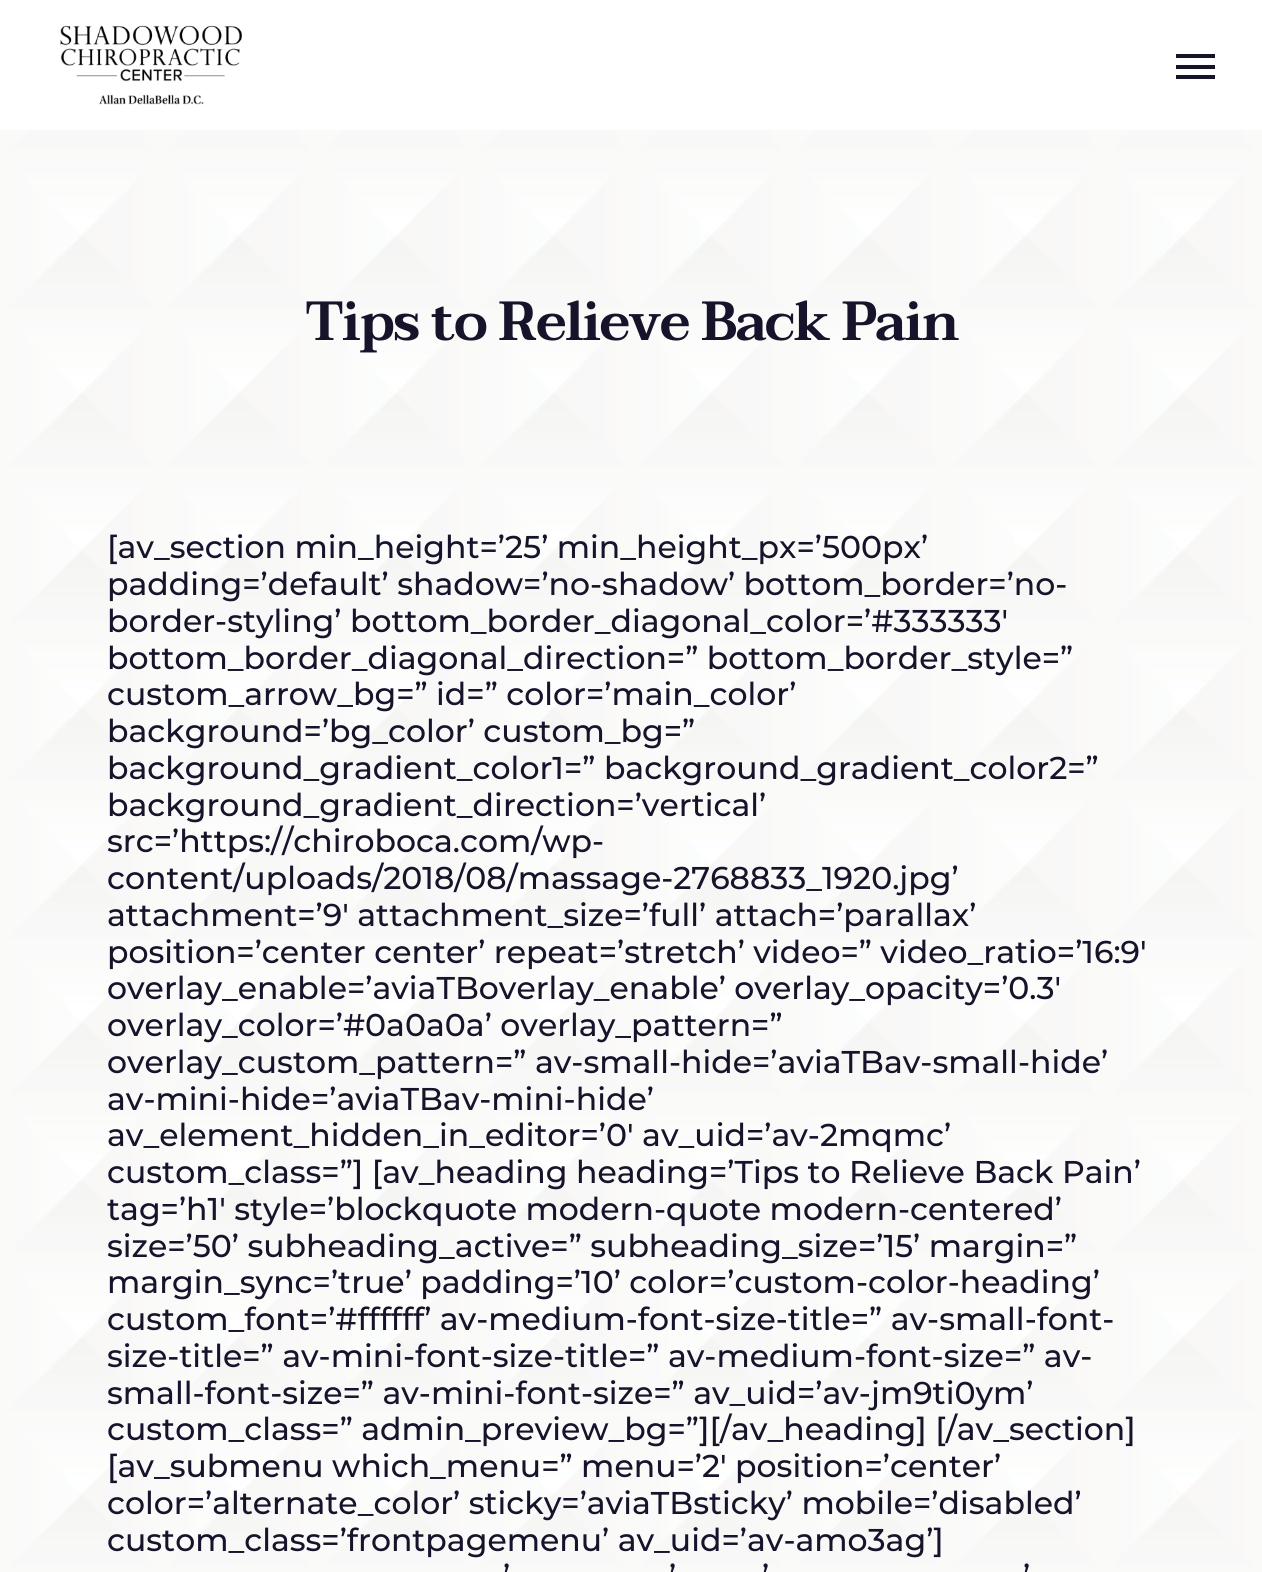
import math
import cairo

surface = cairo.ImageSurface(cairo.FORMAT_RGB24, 1262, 1572)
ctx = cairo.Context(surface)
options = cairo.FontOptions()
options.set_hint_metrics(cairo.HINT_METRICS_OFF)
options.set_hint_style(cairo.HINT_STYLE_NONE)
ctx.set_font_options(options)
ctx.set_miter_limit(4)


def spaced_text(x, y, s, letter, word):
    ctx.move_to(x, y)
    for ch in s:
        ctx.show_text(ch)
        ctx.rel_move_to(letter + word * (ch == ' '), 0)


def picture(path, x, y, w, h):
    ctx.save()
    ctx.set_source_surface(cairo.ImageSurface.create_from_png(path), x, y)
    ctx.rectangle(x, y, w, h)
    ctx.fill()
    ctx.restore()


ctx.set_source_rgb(1, 1, 1)
ctx.paint()
picture("img1.png", 60, 25, 182, 80)
ctx.set_source_rgb(0.086, 0.075, 0.165)
ctx.rectangle(1176, 54, 39, 4)
ctx.fill()
ctx.rectangle(1176, 75, 39, 4)
ctx.fill()
ctx.rectangle(1176, 65, 39, 4)
ctx.fill()
picture("img2.png", 0, 130, 1262, 1442)
ctx.select_font_face("Taviraj SemiBold")
ctx.set_font_size(55.1)
spaced_text(305, 340, "Tips to Relieve Back Pain", -1.75, 0)
ctx.select_font_face("Montserrat Medium")
ctx.set_font_size(31.5)
ctx.move_to(107, 558)
ctx.show_text("[av_section min_height=’25’ min_height_px=’500px’")
ctx.move_to(107, 595)
ctx.show_text("padding=’default’ shadow=’no-shadow’ bottom_border=’no-")
ctx.move_to(107, 632)
ctx.show_text("border-styling’ bottom_border_diagonal_color=’#333333′")
ctx.move_to(107, 669)
ctx.show_text("bottom_border_diagonal_direction=” bottom_border_style=”")
ctx.move_to(107, 705)
ctx.show_text("custom_arrow_bg=” id=” color=’main_color’")
ctx.move_to(107, 742)
ctx.show_text("background=’bg_color’ custom_bg=”")
ctx.move_to(107, 779)
ctx.show_text("background_gradient_color1=” background_gradient_color2=”")
ctx.move_to(107, 816)
ctx.show_text("background_gradient_direction=’vertical’")
ctx.move_to(107, 852)
ctx.show_text("src=’https://chiroboca.com/wp-")
ctx.move_to(107, 889)
ctx.show_text("content/uploads/2018/08/massage-2768833_1920.jpg’")
ctx.move_to(107, 926)
ctx.show_text("attachment=’9′ attachment_size=’full’ attach=’parallax’")
ctx.move_to(107, 963)
ctx.show_text("position=’center center’ repeat=’stretch’ video=” video_ratio=’16:9′")
ctx.move_to(107, 999)
ctx.show_text("overlay_enable=’aviaTBoverlay_enable’ overlay_opacity=’0.3′")
ctx.move_to(107, 1036)
ctx.show_text("overlay_color=’#0a0a0a’ overlay_pattern=”")
ctx.move_to(107, 1073)
ctx.show_text("overlay_custom_pattern=” av-small-hide=’aviaTBav-small-hide’")
ctx.move_to(107, 1110)
ctx.show_text("av-mini-hide=’aviaTBav-mini-hide’")
ctx.move_to(107, 1146)
ctx.show_text("av_element_hidden_in_editor=’0′ av_uid=’av-2mqmc’")
ctx.move_to(107, 1183)
ctx.show_text("custom_class=”] [av_heading heading=’Tips to Relieve Back Pain’")
ctx.move_to(107, 1220)
ctx.show_text("tag=’h1′ style=’blockquote modern-quote modern-centered’")
ctx.move_to(107, 1257)
ctx.show_text("size=’50’ subheading_active=” subheading_size=’15’ margin=”")
ctx.move_to(107, 1293)
ctx.show_text("margin_sync=’true’ padding=’10’ color=’custom-color-heading’")
ctx.move_to(107, 1330)
ctx.show_text("custom_font=’#ffffff’ av-medium-font-size-title=” av-small-font-")
ctx.move_to(107, 1367)
ctx.show_text("size-title=” av-mini-font-size-title=” av-medium-font-size=” av-")
ctx.move_to(107, 1404)
ctx.show_text("small-font-size=” av-mini-font-size=” av_uid=’av-jm9ti0ym’")
ctx.move_to(107, 1440)
ctx.show_text("custom_class=” admin_preview_bg=”][/av_heading] [/av_section]")
ctx.move_to(107, 1477)
ctx.show_text("[av_submenu which_menu=” menu=’2′ position=’center’")
ctx.move_to(107, 1514)
ctx.show_text("color=’alternate_color’ sticky=’aviaTBsticky’ mobile=’disabled’")
ctx.move_to(107, 1551)
ctx.show_text("custom_class=’frontpagemenu’ av_uid=’av-amo3ag’]")
ctx.move_to(503, 1587)
ctx.show_text("’")
ctx.move_to(669, 1587)
ctx.show_text("’")
ctx.move_to(762, 1587)
ctx.show_text("’")
ctx.move_to(1023, 1587)
ctx.show_text("’")
surface.write_to_png("page.png")
